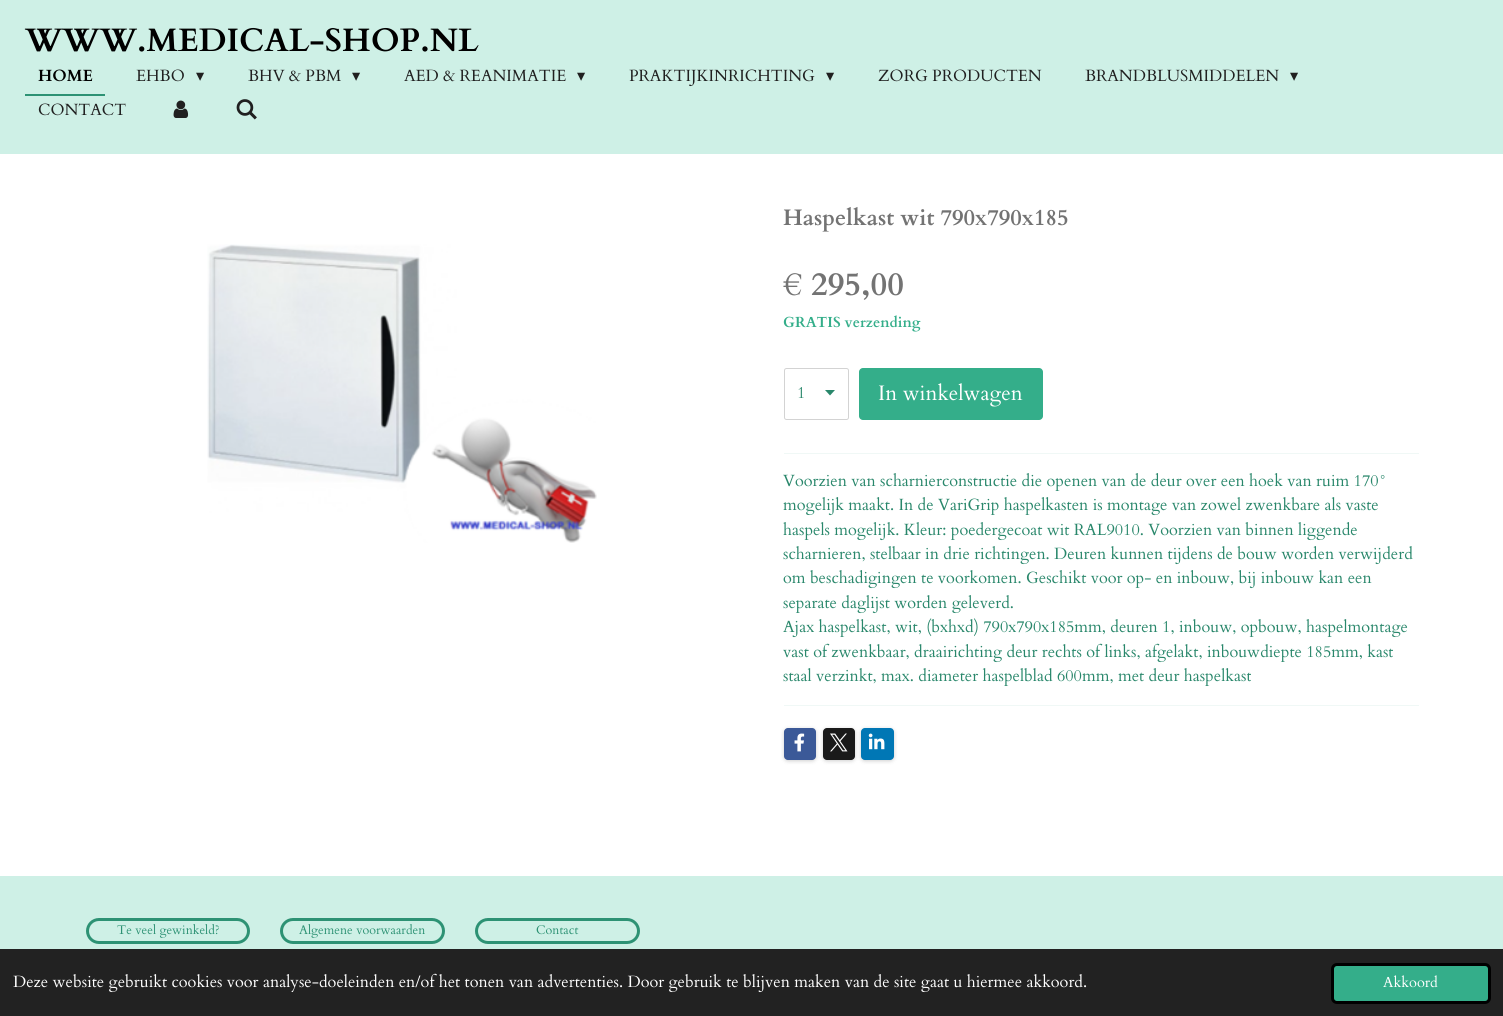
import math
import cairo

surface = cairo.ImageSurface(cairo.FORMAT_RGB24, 1503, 1016)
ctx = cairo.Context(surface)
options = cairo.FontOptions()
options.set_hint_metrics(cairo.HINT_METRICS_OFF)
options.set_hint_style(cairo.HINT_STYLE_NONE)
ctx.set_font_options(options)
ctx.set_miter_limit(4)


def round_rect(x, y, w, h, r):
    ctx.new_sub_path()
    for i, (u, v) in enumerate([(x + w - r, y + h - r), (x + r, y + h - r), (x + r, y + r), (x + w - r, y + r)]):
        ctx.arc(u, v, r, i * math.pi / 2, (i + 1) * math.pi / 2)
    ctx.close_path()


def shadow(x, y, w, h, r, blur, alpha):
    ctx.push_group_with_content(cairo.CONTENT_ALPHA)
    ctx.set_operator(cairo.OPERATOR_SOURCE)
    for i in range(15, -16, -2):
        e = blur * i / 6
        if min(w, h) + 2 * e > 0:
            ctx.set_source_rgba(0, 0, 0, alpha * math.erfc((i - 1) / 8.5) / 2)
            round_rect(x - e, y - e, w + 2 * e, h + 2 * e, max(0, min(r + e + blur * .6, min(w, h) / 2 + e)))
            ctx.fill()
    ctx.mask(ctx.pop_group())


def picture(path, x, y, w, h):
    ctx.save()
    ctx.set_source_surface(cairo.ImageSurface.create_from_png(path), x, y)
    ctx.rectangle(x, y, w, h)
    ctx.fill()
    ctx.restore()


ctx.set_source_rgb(0.808, 0.941, 0.902)
ctx.paint()
ctx.select_font_face("Cardo", cairo.FONT_SLANT_NORMAL, cairo.FONT_WEIGHT_BOLD)
ctx.set_font_size(32.5)
ctx.set_source_rgb(0, 0, 0)
ctx.move_to(25, 51)
ctx.show_text("WWW.MEDICAL-SHOP.NL")
ctx.set_source_rgb(0.176, 0.573, 0.455)
ctx.rectangle(25, 94, 80, 2)
ctx.fill()
ctx.set_font_size(16.25)
ctx.set_source_rgb(0, 0, 0)
ctx.move_to(38, 81)
ctx.show_text("HOME")
ctx.select_font_face("Cardo")
ctx.set_source_rgb(0.125, 0.125, 0.125)
ctx.move_to(136, 81)
ctx.show_text("EHBO")
ctx.select_font_face("DejaVu Sans")
ctx.move_to(196, 81)
ctx.show_text("▾")
ctx.select_font_face("Cardo")
ctx.move_to(248, 81)
ctx.show_text("BHV & PBM")
ctx.select_font_face("DejaVu Sans")
ctx.move_to(352, 81)
ctx.show_text("▾")
ctx.select_font_face("Cardo")
ctx.move_to(404, 81)
ctx.show_text("AED & REANIMATIE")
ctx.select_font_face("DejaVu Sans")
ctx.move_to(577, 81)
ctx.show_text("▾")
ctx.select_font_face("Cardo")
ctx.move_to(629, 81)
ctx.show_text("PRAKTIJKINRICHTING")
ctx.select_font_face("DejaVu Sans")
ctx.move_to(826, 81)
ctx.show_text("▾")
ctx.select_font_face("Cardo")
ctx.move_to(878, 81)
ctx.show_text("ZORG PRODUCTEN")
ctx.move_to(1085, 81)
ctx.show_text("BRANDBLUSMIDDELEN")
ctx.select_font_face("DejaVu Sans")
ctx.move_to(1290, 81)
ctx.show_text("▾")
ctx.select_font_face("Cardo")
ctx.move_to(38, 115)
ctx.show_text("CONTACT")
picture("img1.png", 173, 100, 16, 18)
picture("img2.png", 236, 99, 21, 21)
ctx.set_source_rgb(1, 1, 1)
ctx.rectangle(0, 154, 1503, 722)
ctx.fill()
ctx.select_font_face("Cardo", cairo.FONT_SLANT_NORMAL, cairo.FONT_WEIGHT_BOLD)
ctx.set_font_size(22.5)
ctx.set_source_rgb(0.451, 0.451, 0.451)
ctx.move_to(783, 225)
ctx.show_text("Haspelkast wit 790x790x185")
picture("img3.png", 207, 244, 390, 299)
ctx.set_font_size(32.5)
ctx.move_to(783, 295)
ctx.show_text("€ 295,00")
ctx.set_font_size(14.6)
ctx.set_source_rgb(0.204, 0.682, 0.541)
ctx.move_to(783, 327)
ctx.show_text("GRATIS verzending")
ctx.set_source_rgb(0.161, 0.529, 0.42)
ctx.new_path()
ctx.move_to(830, 395.5)
ctx.line_to(825, 390)
ctx.line_to(835, 390)
ctx.close_path()
ctx.fill()
round_rect(784.5, 368.5, 64, 51, 2)
ctx.set_source_rgb(0.827, 0.827, 0.827)
ctx.set_line_width(1)
ctx.stroke()
ctx.select_font_face("Cardo")
ctx.set_font_size(16.25)
ctx.set_source_rgb(0.161, 0.529, 0.42)
ctx.move_to(797, 398)
ctx.show_text("1")
ctx.set_source_rgb(0.204, 0.682, 0.541)
round_rect(859, 368, 184, 52, 4)
ctx.fill()
ctx.set_font_size(21)
ctx.set_source_rgb(1, 1, 1)
ctx.move_to(878, 400)
ctx.show_text("In winkelwagen")
ctx.set_source_rgb(0.941, 0.969, 0.961)
ctx.rectangle(784, 453, 635, 1)
ctx.fill()
ctx.set_font_size(16.25)
ctx.set_source_rgb(0.161, 0.529, 0.42)
ctx.move_to(783, 486)
ctx.show_text("Voorzien van scharnierconstructie die openen van de deur over een hoek van ruim 170°")
ctx.move_to(783, 510)
ctx.show_text("mogelijk maakt. In de VariGrip haspelkasten is montage van zowel zwenkbare als vaste")
ctx.move_to(783, 535)
ctx.show_text("haspels mogelijk. Kleur: poedergecoat wit RAL9010. Voorzien van binnen liggende")
ctx.move_to(783, 559)
ctx.show_text("scharnieren, stelbaar in drie richtingen. Deuren kunnen tijdens de bouw worden verwijderd")
ctx.move_to(783, 583)
ctx.show_text("om beschadigingen te voorkomen. Geschikt voor op- en inbouw, bij inbouw kan een")
ctx.move_to(783, 608)
ctx.show_text("separate daglijst worden geleverd.")
ctx.move_to(783, 632)
ctx.show_text("Ajax haspelkast, wit, (bxhxd) 790x790x185mm, deuren 1, inbouw, opbouw, haspelmontage")
ctx.move_to(783, 657)
ctx.show_text("vast of zwenkbaar, draairichting deur rechts of links, afgelakt, inbouwdiepte 185mm, kast")
ctx.move_to(783, 681)
ctx.show_text("staal verzinkt, max. diameter haspelblad 600mm, met deur haspelkast")
ctx.set_source_rgb(0.941, 0.969, 0.961)
ctx.rectangle(784, 705, 635, 1)
ctx.fill()
ctx.set_source_rgb(0, 0, 0)
shadow(784, 729, 32, 32, 4, 2, 0.2)
ctx.set_source_rgb(0.231, 0.349, 0.596)
round_rect(784, 728, 32, 32, 4)
ctx.fill()
picture("img4.png", 794, 733, 11, 19)
ctx.set_source_rgb(0, 0, 0)
shadow(823, 729, 32, 32, 4, 2, 0.2)
ctx.set_source_rgb(0.102, 0.102, 0.102)
round_rect(823, 728, 32, 32, 4)
ctx.fill()
picture("img5.png", 830, 733, 18, 19)
ctx.set_source_rgb(0, 0, 0)
shadow(861, 729, 33, 32, 4, 2, 0.2)
ctx.set_source_rgb(0, 0.467, 0.71)
round_rect(861, 728, 33, 32, 4)
ctx.fill()
picture("img6.png", 868, 733, 17, 17)
round_rect(87.5, 919.5, 161, 23, 11.5)
ctx.set_source_rgb(0.176, 0.573, 0.455)
ctx.set_line_width(3)
ctx.stroke()
ctx.set_font_size(12.5)
ctx.move_to(117, 934)
ctx.show_text("Te veel gewinkeld?")
round_rect(281.5, 919.5, 162, 23, 11.5)
ctx.stroke()
ctx.move_to(299, 934)
ctx.show_text("Algemene voorwaarden")
round_rect(476.5, 919.5, 162, 23, 11.5)
ctx.stroke()
ctx.move_to(536, 934)
ctx.show_text("Contact")
ctx.set_source_rgb(0.133, 0.133, 0.133)
ctx.rectangle(0, 949, 1503, 67)
ctx.fill()
ctx.set_font_size(16.25)
ctx.set_source_rgb(1, 1, 1)
ctx.move_to(13, 987)
ctx.show_text("Deze website gebruikt cookies voor analyse-doeleinden en/of het tonen van advertenties. Door gebruik te blijven maken van de site gaat u hiermee akkoord.")
ctx.set_source_rgb(0.204, 0.682, 0.541)
round_rect(1332.5, 964.5, 157, 38, 4.5)
ctx.fill_preserve()
ctx.set_source_rgb(0, 0, 0)
ctx.stroke()
ctx.set_font_size(14.6)
ctx.set_source_rgb(1, 1, 1)
ctx.move_to(1383, 987)
ctx.show_text("Akkoord")
surface.write_to_png("page.png")
